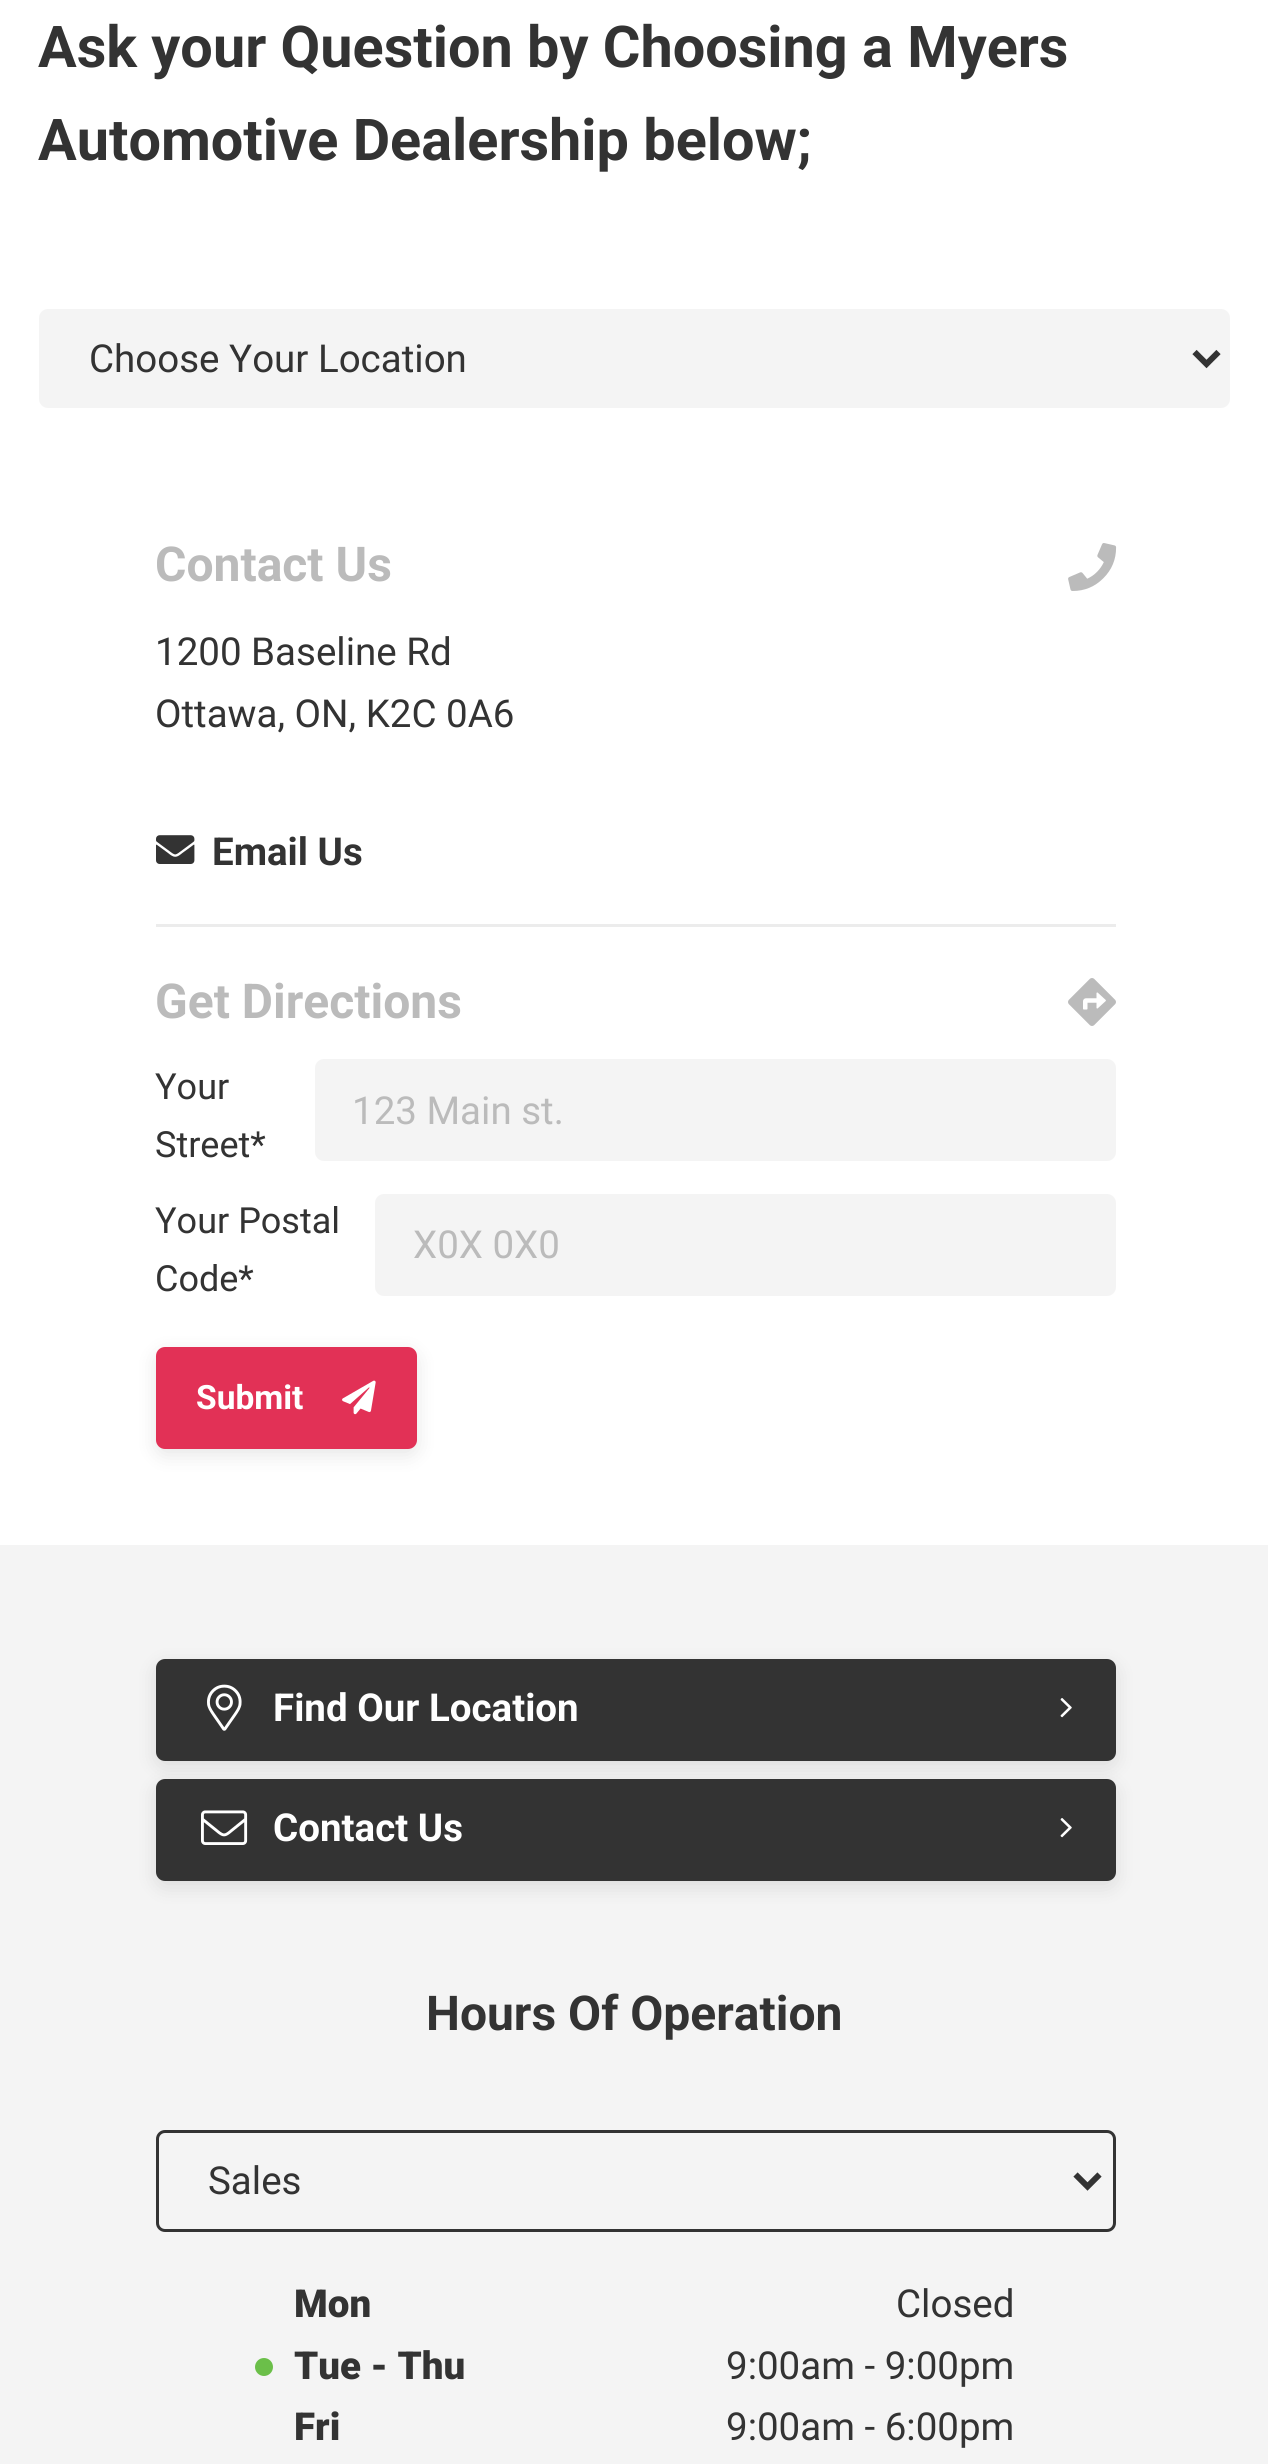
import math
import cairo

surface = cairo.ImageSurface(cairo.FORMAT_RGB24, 1268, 2464)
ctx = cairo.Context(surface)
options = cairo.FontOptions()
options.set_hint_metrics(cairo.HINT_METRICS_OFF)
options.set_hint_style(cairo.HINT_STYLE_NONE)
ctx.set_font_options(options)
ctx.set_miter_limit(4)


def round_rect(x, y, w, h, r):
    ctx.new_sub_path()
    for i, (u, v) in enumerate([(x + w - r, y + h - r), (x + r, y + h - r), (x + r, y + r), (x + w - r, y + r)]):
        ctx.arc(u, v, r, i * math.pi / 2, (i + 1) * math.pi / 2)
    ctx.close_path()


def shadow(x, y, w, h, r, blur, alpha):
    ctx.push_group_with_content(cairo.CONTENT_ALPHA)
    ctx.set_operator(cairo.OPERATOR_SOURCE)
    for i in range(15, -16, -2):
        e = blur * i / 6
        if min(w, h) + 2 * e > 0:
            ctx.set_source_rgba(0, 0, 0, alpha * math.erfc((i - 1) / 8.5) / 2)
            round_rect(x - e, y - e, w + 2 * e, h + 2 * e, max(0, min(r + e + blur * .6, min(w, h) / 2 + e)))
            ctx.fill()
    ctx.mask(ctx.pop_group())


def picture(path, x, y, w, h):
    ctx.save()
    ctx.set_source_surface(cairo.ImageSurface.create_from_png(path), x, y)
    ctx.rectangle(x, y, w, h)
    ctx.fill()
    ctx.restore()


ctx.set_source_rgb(1, 1, 1)
ctx.paint()
ctx.select_font_face("Roboto", cairo.FONT_SLANT_NORMAL, cairo.FONT_WEIGHT_BOLD)
ctx.set_font_size(57.6)
ctx.set_source_rgb(0.2, 0.2, 0.2)
ctx.move_to(38, 67)
ctx.show_text("Ask your Question by Choosing a Myers")
ctx.move_to(38, 160)
ctx.show_text("Automotive Dealership below;")
ctx.set_source_rgb(0.957, 0.957, 0.957)
round_rect(39, 309, 1191, 99, 9)
ctx.fill()
ctx.new_path()
ctx.move_to(1194.5, 352)
ctx.line_to(1206.5, 364)
ctx.line_to(1218.5, 352)
ctx.set_source_rgb(0.2, 0.2, 0.2)
ctx.set_line_width(6)
ctx.stroke()
ctx.select_font_face("Roboto")
ctx.set_font_size(38.5)
ctx.move_to(89, 372)
ctx.show_text("Choose Your Location")
ctx.set_source_rgb(0.925, 0.925, 0.925)
ctx.rectangle(156, 924, 960, 3)
ctx.fill()
ctx.select_font_face("Roboto", cairo.FONT_SLANT_NORMAL, cairo.FONT_WEIGHT_BOLD)
ctx.set_font_size(48)
ctx.set_source_rgb(0.733, 0.733, 0.733)
ctx.move_to(155, 581)
ctx.show_text("Contact Us")
picture("img1.png", 1068, 543, 49, 48)
ctx.select_font_face("Roboto")
ctx.set_font_size(38.5)
ctx.set_source_rgb(0.2, 0.2, 0.2)
ctx.move_to(155, 665)
ctx.show_text("1200 Baseline Rd")
ctx.move_to(155, 727)
ctx.show_text("Ottawa, ON, K2C 0A6")
picture("img2.png", 156, 835, 39, 29)
ctx.select_font_face("Roboto", cairo.FONT_SLANT_NORMAL, cairo.FONT_WEIGHT_BOLD)
ctx.move_to(212, 865)
ctx.show_text("Email Us")
ctx.set_font_size(48)
ctx.set_source_rgb(0.733, 0.733, 0.733)
ctx.move_to(155, 1018)
ctx.show_text("Get Directions")
picture("img3.png", 1068, 978, 48, 48)
ctx.select_font_face("Roboto")
ctx.set_font_size(36)
ctx.set_source_rgb(0.2, 0.2, 0.2)
ctx.move_to(155, 1099)
ctx.show_text("Your")
ctx.set_source_rgb(0.957, 0.957, 0.957)
round_rect(315, 1059, 801, 102, 9)
ctx.fill()
ctx.set_font_size(38.5)
ctx.set_source_rgb(0.733, 0.733, 0.733)
ctx.move_to(352, 1124)
ctx.show_text("123 Main st.")
ctx.set_font_size(36)
ctx.set_source_rgb(0.2, 0.2, 0.2)
ctx.move_to(155, 1157)
ctx.show_text("Street*")
ctx.move_to(155, 1233)
ctx.show_text("Your Postal")
ctx.set_source_rgb(0.957, 0.957, 0.957)
round_rect(375, 1194, 741, 102, 9)
ctx.fill()
ctx.set_font_size(38.5)
ctx.set_source_rgb(0.733, 0.733, 0.733)
ctx.move_to(413, 1258)
ctx.show_text("X0X 0X0")
ctx.set_font_size(36)
ctx.set_source_rgb(0.2, 0.2, 0.2)
ctx.move_to(155, 1291)
ctx.show_text("Code*")
ctx.set_source_rgb(0, 0, 0)
shadow(156, 1353, 261, 102, 9, 9.5, 0.1)
ctx.set_source_rgb(0.886, 0.192, 0.337)
round_rect(156, 1347, 261, 102, 9)
ctx.fill()
ctx.select_font_face("Roboto", cairo.FONT_SLANT_NORMAL, cairo.FONT_WEIGHT_BOLD)
ctx.set_font_size(33.5)
ctx.set_source_rgb(1, 1, 1)
ctx.move_to(196, 1409)
ctx.show_text("Submit")
picture("img4.png", 342, 1380, 34, 35)
ctx.set_source_rgb(0.957, 0.957, 0.957)
ctx.rectangle(0, 1545, 1268, 919)
ctx.fill()
ctx.set_source_rgb(0, 0, 0)
shadow(156, 1665, 960, 102, 9, 9.5, 0.1)
ctx.set_source_rgb(0.2, 0.2, 0.2)
round_rect(156, 1659, 960, 102, 9)
ctx.fill()
picture("img5.png", 207, 1684, 35, 47)
ctx.set_font_size(38.5)
ctx.set_source_rgb(1, 1, 1)
ctx.move_to(273, 1721)
ctx.show_text("Find Our Location")
picture("img6.png", 1060, 1698, 12, 20)
ctx.set_source_rgb(0, 0, 0)
shadow(156, 1785, 960, 102, 9, 9.5, 0.1)
ctx.set_source_rgb(0.2, 0.2, 0.2)
round_rect(156, 1779, 960, 102, 9)
ctx.fill()
picture("img7.png", 201, 1810, 47, 35)
ctx.set_source_rgb(1, 1, 1)
ctx.move_to(273, 1841)
ctx.show_text("Contact Us")
picture("img6.png", 1060, 1818, 12, 20)
ctx.set_font_size(48)
ctx.set_source_rgb(0.2, 0.2, 0.2)
ctx.move_to(426, 2030)
ctx.show_text("Hours Of Operation")
round_rect(157.5, 2131.5, 957, 99, 7.5)
ctx.set_line_width(3)
ctx.stroke()
ctx.new_path()
ctx.move_to(1075.5, 2174.5)
ctx.line_to(1087.5, 2186.5)
ctx.line_to(1099.5, 2174.5)
ctx.set_line_width(6)
ctx.stroke()
ctx.select_font_face("Roboto")
ctx.set_font_size(38.5)
ctx.move_to(208, 2194)
ctx.show_text("Sales")
ctx.select_font_face("Roboto Black")
ctx.move_to(294, 2317)
ctx.show_text("Mon")
ctx.select_font_face("Roboto")
ctx.move_to(896, 2317)
ctx.show_text("Closed")
ctx.set_source_rgb(0.42, 0.749, 0.286)
ctx.new_path()
ctx.arc(264, 2367, 9, 0, 2 * math.pi)
ctx.fill()
ctx.select_font_face("Roboto Black")
ctx.set_source_rgb(0.2, 0.2, 0.2)
ctx.move_to(294, 2379)
ctx.show_text("Tue - Thu")
ctx.select_font_face("Roboto")
ctx.move_to(726, 2379)
ctx.show_text("9:00am - 9:00pm")
ctx.select_font_face("Roboto Black")
ctx.move_to(294, 2440)
ctx.show_text("Fri")
ctx.select_font_face("Roboto")
ctx.move_to(726, 2440)
ctx.show_text("9:00am - 6:00pm")
surface.write_to_png("page.png")
